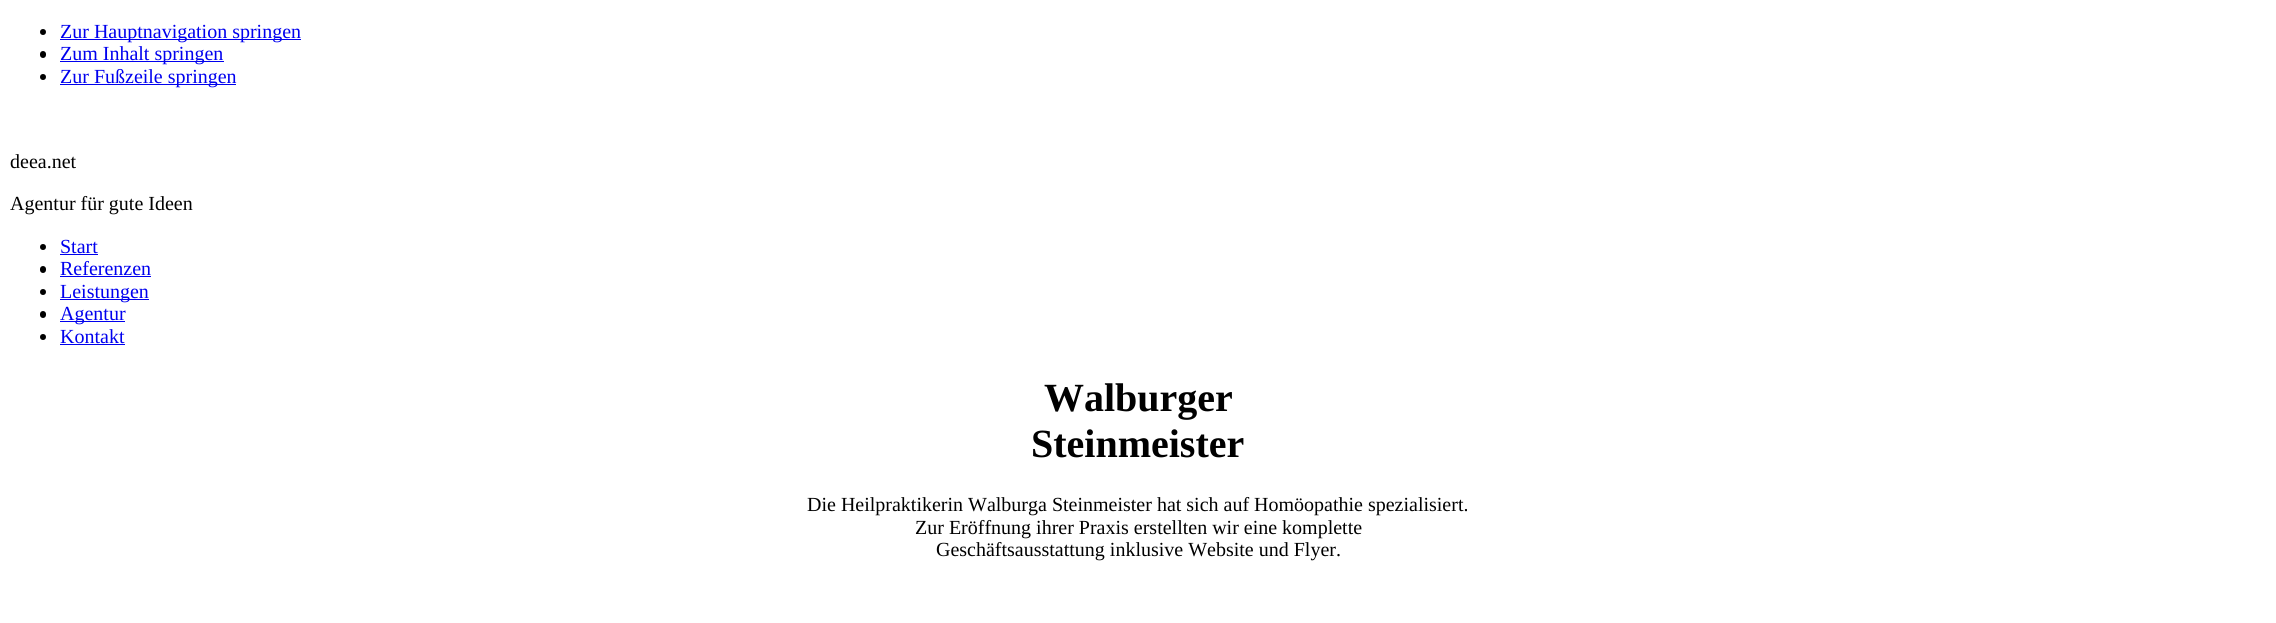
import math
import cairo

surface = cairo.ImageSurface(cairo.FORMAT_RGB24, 2276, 623)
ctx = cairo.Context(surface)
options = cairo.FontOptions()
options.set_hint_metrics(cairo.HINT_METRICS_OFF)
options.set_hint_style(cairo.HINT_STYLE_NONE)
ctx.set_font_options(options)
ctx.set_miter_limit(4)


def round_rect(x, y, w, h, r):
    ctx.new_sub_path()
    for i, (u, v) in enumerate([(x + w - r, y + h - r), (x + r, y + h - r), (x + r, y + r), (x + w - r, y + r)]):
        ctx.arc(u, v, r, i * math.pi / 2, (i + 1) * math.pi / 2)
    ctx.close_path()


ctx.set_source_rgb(1, 1, 1)
ctx.paint()
ctx.set_source_rgb(0, 0, 0)
ctx.arc(43, 32, 3, 0, 2 * math.pi)
ctx.fill()
ctx.set_source_rgb(0, 0, 0.933)
ctx.rectangle(60, 39, 241, 1)
ctx.fill()
ctx.select_font_face("Liberation Serif")
ctx.set_font_size(20)
ctx.move_to(60, 38)
ctx.show_text("Zur Hauptnavigation springen")
ctx.set_source_rgb(0, 0, 0)
round_rect(40, 51, 6, 7, 3)
ctx.fill()
ctx.set_source_rgb(0, 0, 0.933)
ctx.rectangle(60, 61, 164, 1)
ctx.fill()
ctx.move_to(60, 60)
ctx.show_text("Zum Inhalt springen")
ctx.set_source_rgb(0, 0, 0)
ctx.new_path()
ctx.arc(43, 77, 3, 0, 2 * math.pi)
ctx.fill()
ctx.set_source_rgb(0, 0, 0.933)
ctx.rectangle(60, 84, 176, 1)
ctx.fill()
ctx.move_to(60, 83)
ctx.show_text("Zur Fußzeile springen")
ctx.set_source_rgb(0, 0, 0)
ctx.move_to(10, 168)
ctx.show_text("deea.net")
ctx.move_to(10, 210)
ctx.show_text("Agentur für gute Ideen")
ctx.new_path()
ctx.arc(43, 247, 3, 0, 2 * math.pi)
ctx.fill()
ctx.set_source_rgb(0, 0, 0.933)
ctx.move_to(60, 253)
ctx.show_text("Start")
ctx.rectangle(60, 254, 38, 1)
ctx.fill()
ctx.set_source_rgb(0, 0, 0)
round_rect(40, 266, 6, 7, 3)
ctx.fill()
ctx.set_source_rgb(0, 0, 0.933)
ctx.move_to(60, 275)
ctx.show_text("Referenzen")
ctx.rectangle(60, 276, 91, 1)
ctx.fill()
ctx.set_source_rgb(0, 0, 0)
ctx.arc(43, 292, 3, 0, 2 * math.pi)
ctx.fill()
ctx.set_source_rgb(0, 0, 0.933)
ctx.rectangle(60, 299, 89, 1)
ctx.fill()
ctx.move_to(60, 298)
ctx.show_text("Leistungen")
ctx.set_source_rgb(0, 0, 0)
round_rect(40, 311, 6, 7, 3)
ctx.fill()
ctx.set_source_rgb(0, 0, 0.933)
ctx.rectangle(60, 321, 65, 1)
ctx.fill()
ctx.move_to(60, 320)
ctx.show_text("Agentur")
ctx.set_source_rgb(0, 0, 0)
ctx.new_path()
ctx.arc(43, 337, 3, 0, 2 * math.pi)
ctx.fill()
ctx.set_source_rgb(0, 0, 0.933)
ctx.move_to(60, 343)
ctx.show_text("Kontakt")
ctx.rectangle(60, 344, 65, 1)
ctx.fill()
ctx.select_font_face("Liberation Serif", cairo.FONT_SLANT_NORMAL, cairo.FONT_WEIGHT_BOLD)
ctx.set_font_size(40)
ctx.set_source_rgb(0, 0, 0)
ctx.move_to(1044, 411)
ctx.show_text("Walburger")
ctx.move_to(1031, 457)
ctx.show_text("Steinmeister")
ctx.select_font_face("Liberation Serif")
ctx.set_font_size(20)
ctx.move_to(807, 511)
ctx.show_text("Die Heilpraktikerin Walburga Steinmeister hat sich auf Homöopathie spezialisiert.")
ctx.move_to(915, 534)
ctx.show_text("Zur Eröffnung ihrer Praxis erstellten wir eine komplette")
ctx.move_to(936, 556)
ctx.show_text("Geschäftsausstattung inklusive Website und Flyer.")
surface.write_to_png("page.png")
